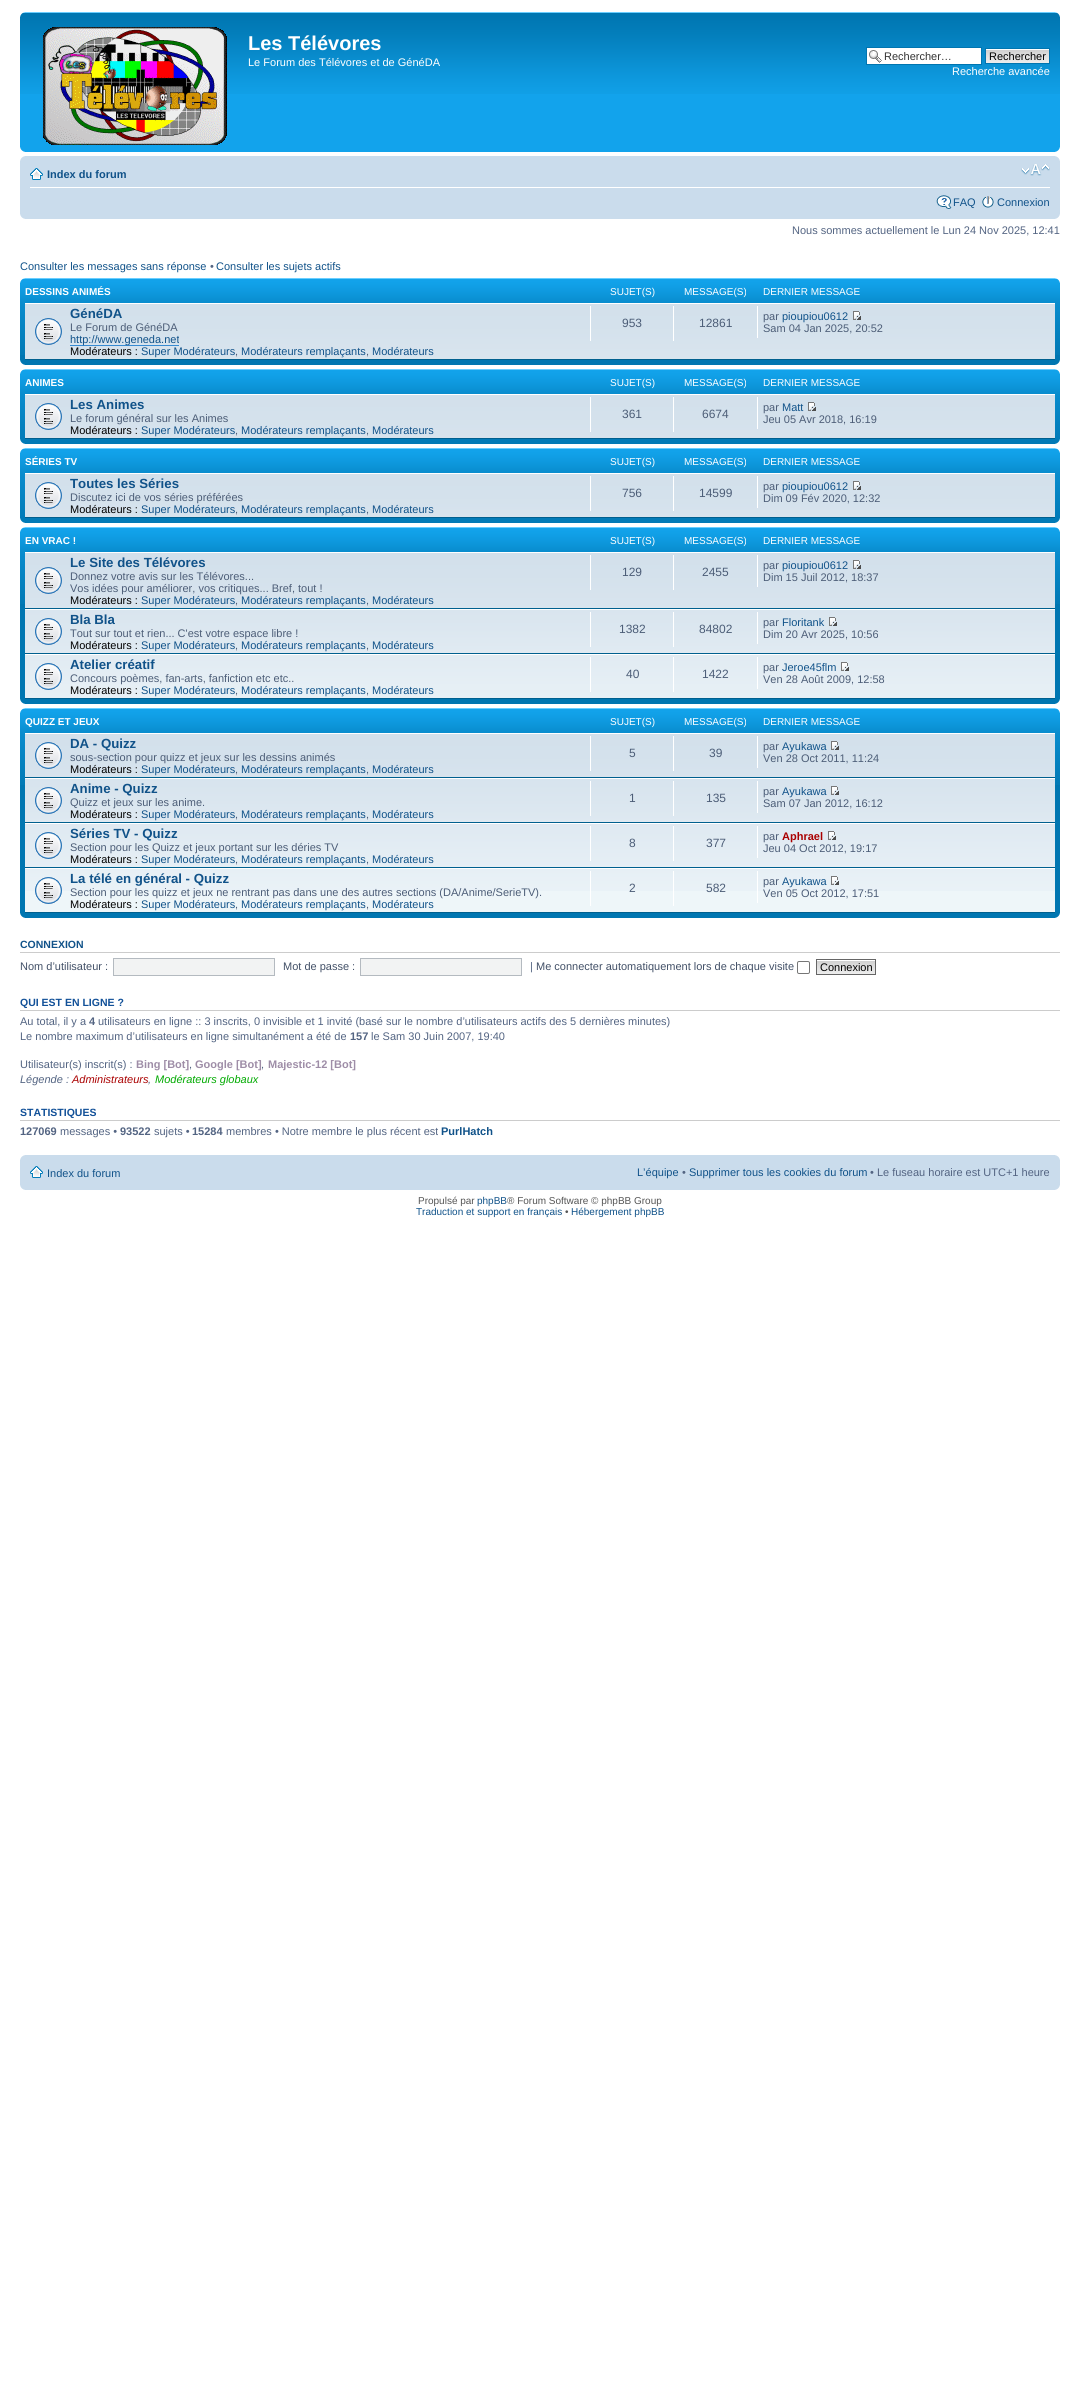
import math
import cairo

surface = cairo.ImageSurface(cairo.FORMAT_RGB24, 1080, 2381)
ctx = cairo.Context(surface)
options = cairo.FontOptions()
options.set_hint_metrics(cairo.HINT_METRICS_OFF)
options.set_hint_style(cairo.HINT_STYLE_NONE)
ctx.set_font_options(options)
ctx.set_miter_limit(4)


def round_rect(x, y, w, h, r):
    ctx.new_sub_path()
    for i, (u, v) in enumerate([(x + w - r, y + h - r), (x + r, y + h - r), (x + r, y + r), (x + w - r, y + r)]):
        ctx.arc(u, v, r, i * math.pi / 2, (i + 1) * math.pi / 2)
    ctx.close_path()


def picture(path, x, y, w, h):
    ctx.save()
    ctx.set_source_surface(cairo.ImageSurface.create_from_png(path), x, y)
    ctx.rectangle(x, y, w, h)
    ctx.fill()
    ctx.restore()


ctx.set_source_rgb(1, 1, 1)
ctx.paint()
ctx.set_source_rgb(0.071, 0.639, 0.922)
ctx.rectangle(20, 94, 1040, 58)
ctx.fill()
picture("img1.png", 20, 12, 1040, 82)
picture("img2.png", 20, 12, 5, 5)
picture("img3.png", 1055, 12, 5, 5)
picture("img4.png", 43, 27, 184, 118)
ctx.select_font_face("Liberation Sans", cairo.FONT_SLANT_NORMAL, cairo.FONT_WEIGHT_BOLD)
ctx.set_font_size(20)
ctx.set_source_rgb(1, 1, 1)
ctx.move_to(248, 50)
ctx.show_text("Les Télévores")
ctx.select_font_face("Liberation Sans")
ctx.set_font_size(11)
ctx.move_to(248, 66)
ctx.show_text("Le Forum des Télévores et de GénéDA")
ctx.rectangle(867, 48, 114, 16)
ctx.fill()
picture("img5.png", 869, 50, 13, 13)
ctx.rectangle(866.5, 47.5, 115, 17)
ctx.set_source_rgb(0, 0.459, 0.69)
ctx.set_line_width(1)
ctx.stroke()
ctx.set_source_rgb(0.2, 0.2, 0.2)
ctx.move_to(884, 60)
ctx.show_text("Rechercher…")
picture("img6.png", 986, 49, 63, 14)
ctx.rectangle(985.5, 48.5, 64, 15)
ctx.set_source_rgb(0, 0.459, 0.69)
ctx.stroke()
ctx.set_source_rgb(0, 0, 0)
ctx.move_to(989, 60)
ctx.show_text("Rechercher")
ctx.set_source_rgb(1, 1, 1)
ctx.move_to(952, 75)
ctx.show_text("Recherche avancée")
picture("img7.png", 20, 147, 5, 5)
picture("img8.png", 1055, 147, 5, 5)
ctx.set_source_rgb(0.792, 0.863, 0.922)
ctx.rectangle(20, 156, 1040, 63)
ctx.fill()
picture("img9.png", 20, 156, 5, 5)
picture("img10.png", 1055, 156, 5, 5)
ctx.set_source_rgb(1, 1, 1)
ctx.rectangle(30, 187, 1020, 1)
ctx.fill()
picture("img11.png", 30, 168, 13, 12)
ctx.select_font_face("Liberation Sans", cairo.FONT_SLANT_NORMAL, cairo.FONT_WEIGHT_BOLD)
ctx.set_source_rgb(0.063, 0.322, 0.537)
ctx.move_to(47, 178)
ctx.show_text("Index du forum")
picture("img12.png", 1021, 164, 29, 12)
picture("img13.png", 936, 195, 16, 14)
ctx.select_font_face("Liberation Sans")
ctx.move_to(953, 206)
ctx.show_text("FAQ")
picture("img14.png", 982, 196, 12, 12)
ctx.move_to(997, 206)
ctx.show_text("Connexion")
picture("img15.png", 20, 214, 5, 5)
picture("img16.png", 1055, 214, 5, 5)
ctx.set_source_rgb(0.325, 0.392, 0.51)
ctx.move_to(792, 234)
ctx.show_text("Nous sommes actuellement le Lun 24 Nov 2025, 12:41")
ctx.set_source_rgb(0.063, 0.322, 0.537)
ctx.move_to(20, 270)
ctx.show_text("Consulter les messages sans réponse")
ctx.set_source_rgb(0.325, 0.392, 0.51)
ctx.move_to(210, 270)
ctx.show_text("•")
ctx.set_source_rgb(0.063, 0.322, 0.537)
ctx.move_to(216, 270)
ctx.show_text("Consulter les sujets actifs")
ctx.set_source_rgb(0, 0.463, 0.694)
ctx.rectangle(20, 355, 1040, 10)
ctx.fill()
picture("img17.png", 20, 278, 1040, 77)
picture("img18.png", 20, 278, 5, 5)
picture("img19.png", 1055, 278, 5, 5)
ctx.select_font_face("Liberation Sans", cairo.FONT_SLANT_NORMAL, cairo.FONT_WEIGHT_BOLD)
ctx.set_font_size(10)
ctx.set_source_rgb(1, 1, 1)
ctx.move_to(25, 295)
ctx.show_text("DESSINS ANIMÉS")
ctx.select_font_face("Liberation Sans")
ctx.move_to(610, 295)
ctx.show_text("SUJET(S)")
ctx.move_to(684, 295)
ctx.show_text("MESSAGE(S)")
ctx.move_to(763, 295)
ctx.show_text("DERNIER MESSAGE")
picture("img20.png", 25, 304, 1030, 55)
ctx.rectangle(25, 303, 1030, 1)
ctx.fill()
ctx.set_source_rgb(0, 0.376, 0.561)
ctx.rectangle(25, 359, 1030, 1)
ctx.fill()
picture("img21.png", 35, 318, 27, 27)
ctx.select_font_face("Liberation Sans", cairo.FONT_SLANT_NORMAL, cairo.FONT_WEIGHT_BOLD)
ctx.set_font_size(13.25)
ctx.set_source_rgb(0.063, 0.322, 0.537)
ctx.move_to(70, 318)
ctx.show_text("GénéDA")
ctx.select_font_face("Liberation Sans")
ctx.set_font_size(11)
ctx.set_source_rgb(0.298, 0.365, 0.467)
ctx.move_to(70, 331)
ctx.show_text("Le Forum de GénéDA")
ctx.set_source_rgb(0.212, 0.541, 0.824)
ctx.rectangle(70, 345, 109, 1)
ctx.fill()
ctx.set_source_rgb(0.063, 0.322, 0.537)
ctx.move_to(70, 343)
ctx.show_text("http://www.geneda.net")
ctx.set_source_rgb(0, 0, 0)
ctx.move_to(70, 355)
ctx.show_text("Modérateurs :")
ctx.set_source_rgb(0.063, 0.322, 0.537)
ctx.move_to(141, 355)
ctx.show_text("Super Modérateurs")
ctx.set_source_rgb(0.298, 0.365, 0.467)
ctx.move_to(235, 355)
ctx.show_text(",")
ctx.set_source_rgb(0.063, 0.322, 0.537)
ctx.move_to(241, 355)
ctx.show_text("Modérateurs remplaçants")
ctx.set_source_rgb(0.298, 0.365, 0.467)
ctx.move_to(366, 355)
ctx.show_text(",")
ctx.set_source_rgb(0.063, 0.322, 0.537)
ctx.move_to(372, 355)
ctx.show_text("Modérateurs")
ctx.set_source_rgb(1, 1, 1)
ctx.rectangle(590, 306, 1, 35)
ctx.fill()
ctx.set_font_size(12)
ctx.set_source_rgb(0.298, 0.365, 0.467)
ctx.move_to(622, 327)
ctx.show_text("953")
ctx.set_source_rgb(1, 1, 1)
ctx.rectangle(673, 306, 1, 35)
ctx.fill()
ctx.set_source_rgb(0.298, 0.365, 0.467)
ctx.move_to(699, 327)
ctx.show_text("12861")
ctx.set_source_rgb(1, 1, 1)
ctx.rectangle(757, 306, 1, 32)
ctx.fill()
ctx.set_font_size(11)
ctx.set_source_rgb(0.298, 0.365, 0.467)
ctx.move_to(763, 320)
ctx.show_text("par")
ctx.set_source_rgb(0.063, 0.322, 0.537)
ctx.move_to(782, 320)
ctx.show_text("pioupiou0612")
picture("img22.png", 853, 311, 8, 9)
ctx.set_source_rgb(0.298, 0.365, 0.467)
ctx.move_to(763, 332)
ctx.show_text("Sam 04 Jan 2025, 20:52")
picture("img23.png", 20, 360, 5, 5)
picture("img24.png", 1055, 360, 5, 5)
picture("img25.png", 20, 369, 1040, 75)
picture("img18.png", 20, 369, 5, 5)
picture("img19.png", 1055, 369, 5, 5)
ctx.select_font_face("Liberation Sans", cairo.FONT_SLANT_NORMAL, cairo.FONT_WEIGHT_BOLD)
ctx.set_font_size(10)
ctx.set_source_rgb(1, 1, 1)
ctx.move_to(25, 386)
ctx.show_text("ANIMES")
ctx.select_font_face("Liberation Sans")
ctx.move_to(610, 386)
ctx.show_text("SUJET(S)")
ctx.move_to(684, 386)
ctx.show_text("MESSAGE(S)")
ctx.move_to(763, 386)
ctx.show_text("DERNIER MESSAGE")
picture("img26.png", 25, 395, 1030, 43)
ctx.rectangle(25, 394, 1030, 1)
ctx.fill()
ctx.set_source_rgb(0, 0.376, 0.561)
ctx.rectangle(25, 438, 1030, 1)
ctx.fill()
picture("img27.png", 35, 403, 27, 27)
ctx.select_font_face("Liberation Sans", cairo.FONT_SLANT_NORMAL, cairo.FONT_WEIGHT_BOLD)
ctx.set_font_size(13.25)
ctx.set_source_rgb(0.063, 0.322, 0.537)
ctx.move_to(70, 409)
ctx.show_text("Les Animes")
ctx.select_font_face("Liberation Sans")
ctx.set_font_size(11)
ctx.set_source_rgb(0.298, 0.365, 0.467)
ctx.move_to(70, 422)
ctx.show_text("Le forum général sur les Animes")
ctx.set_source_rgb(0, 0, 0)
ctx.move_to(70, 434)
ctx.show_text("Modérateurs :")
ctx.set_source_rgb(0.063, 0.322, 0.537)
ctx.move_to(141, 434)
ctx.show_text("Super Modérateurs")
ctx.set_source_rgb(0.298, 0.365, 0.467)
ctx.move_to(235, 434)
ctx.show_text(",")
ctx.set_source_rgb(0.063, 0.322, 0.537)
ctx.move_to(241, 434)
ctx.show_text("Modérateurs remplaçants")
ctx.set_source_rgb(0.298, 0.365, 0.467)
ctx.move_to(366, 434)
ctx.show_text(",")
ctx.set_source_rgb(0.063, 0.322, 0.537)
ctx.move_to(372, 434)
ctx.show_text("Modérateurs")
ctx.set_source_rgb(1, 1, 1)
ctx.rectangle(590, 397, 1, 35)
ctx.fill()
ctx.set_font_size(12)
ctx.set_source_rgb(0.298, 0.365, 0.467)
ctx.move_to(622, 418)
ctx.show_text("361")
ctx.set_source_rgb(1, 1, 1)
ctx.rectangle(673, 397, 1, 35)
ctx.fill()
ctx.set_source_rgb(0.298, 0.365, 0.467)
ctx.move_to(702, 418)
ctx.show_text("6674")
ctx.set_source_rgb(1, 1, 1)
ctx.rectangle(757, 397, 1, 32)
ctx.fill()
ctx.set_font_size(11)
ctx.set_source_rgb(0.298, 0.365, 0.467)
ctx.move_to(763, 411)
ctx.show_text("par")
ctx.set_source_rgb(0.063, 0.322, 0.537)
ctx.move_to(782, 411)
ctx.show_text("Matt")
picture("img22.png", 808, 402, 8, 9)
ctx.set_source_rgb(0.298, 0.365, 0.467)
ctx.move_to(763, 423)
ctx.show_text("Jeu 05 Avr 2018, 16:19")
picture("img28.png", 20, 439, 5, 5)
picture("img29.png", 1055, 439, 5, 5)
picture("img25.png", 20, 448, 1040, 75)
picture("img18.png", 20, 448, 5, 5)
picture("img19.png", 1055, 448, 5, 5)
ctx.select_font_face("Liberation Sans", cairo.FONT_SLANT_NORMAL, cairo.FONT_WEIGHT_BOLD)
ctx.set_font_size(10)
ctx.set_source_rgb(1, 1, 1)
ctx.move_to(25, 465)
ctx.show_text("SÉRIES TV")
ctx.select_font_face("Liberation Sans")
ctx.move_to(610, 465)
ctx.show_text("SUJET(S)")
ctx.move_to(684, 465)
ctx.show_text("MESSAGE(S)")
ctx.move_to(763, 465)
ctx.show_text("DERNIER MESSAGE")
picture("img26.png", 25, 474, 1030, 43)
ctx.rectangle(25, 473, 1030, 1)
ctx.fill()
ctx.set_source_rgb(0, 0.376, 0.561)
ctx.rectangle(25, 517, 1030, 1)
ctx.fill()
picture("img27.png", 35, 482, 27, 27)
ctx.select_font_face("Liberation Sans", cairo.FONT_SLANT_NORMAL, cairo.FONT_WEIGHT_BOLD)
ctx.set_font_size(13.25)
ctx.set_source_rgb(0.063, 0.322, 0.537)
ctx.move_to(70, 488)
ctx.show_text("Toutes les Séries")
ctx.select_font_face("Liberation Sans")
ctx.set_font_size(11)
ctx.set_source_rgb(0.298, 0.365, 0.467)
ctx.move_to(70, 501)
ctx.show_text("Discutez ici de vos séries préférées")
ctx.set_source_rgb(0, 0, 0)
ctx.move_to(70, 513)
ctx.show_text("Modérateurs :")
ctx.set_source_rgb(0.063, 0.322, 0.537)
ctx.move_to(141, 513)
ctx.show_text("Super Modérateurs")
ctx.set_source_rgb(0.298, 0.365, 0.467)
ctx.move_to(235, 513)
ctx.show_text(",")
ctx.set_source_rgb(0.063, 0.322, 0.537)
ctx.move_to(241, 513)
ctx.show_text("Modérateurs remplaçants")
ctx.set_source_rgb(0.298, 0.365, 0.467)
ctx.move_to(366, 513)
ctx.show_text(",")
ctx.set_source_rgb(0.063, 0.322, 0.537)
ctx.move_to(372, 513)
ctx.show_text("Modérateurs")
ctx.set_source_rgb(1, 1, 1)
ctx.rectangle(590, 476, 1, 35)
ctx.fill()
ctx.set_font_size(12)
ctx.set_source_rgb(0.298, 0.365, 0.467)
ctx.move_to(622, 497)
ctx.show_text("756")
ctx.set_source_rgb(1, 1, 1)
ctx.rectangle(673, 476, 1, 35)
ctx.fill()
ctx.set_source_rgb(0.298, 0.365, 0.467)
ctx.move_to(699, 497)
ctx.show_text("14599")
ctx.set_source_rgb(1, 1, 1)
ctx.rectangle(757, 476, 1, 32)
ctx.fill()
ctx.set_font_size(11)
ctx.set_source_rgb(0.298, 0.365, 0.467)
ctx.move_to(763, 490)
ctx.show_text("par")
ctx.set_source_rgb(0.063, 0.322, 0.537)
ctx.move_to(782, 490)
ctx.show_text("pioupiou0612")
picture("img22.png", 853, 481, 8, 9)
ctx.set_source_rgb(0.298, 0.365, 0.467)
ctx.move_to(763, 502)
ctx.show_text("Dim 09 Fév 2020, 12:32")
picture("img28.png", 20, 518, 5, 5)
picture("img29.png", 1055, 518, 5, 5)
ctx.set_source_rgb(0, 0.463, 0.694)
ctx.rectangle(20, 604, 1040, 100)
ctx.fill()
picture("img17.png", 20, 527, 1040, 77)
picture("img18.png", 20, 527, 5, 5)
picture("img19.png", 1055, 527, 5, 5)
ctx.select_font_face("Liberation Sans", cairo.FONT_SLANT_NORMAL, cairo.FONT_WEIGHT_BOLD)
ctx.set_font_size(10)
ctx.set_source_rgb(1, 1, 1)
ctx.move_to(25, 544)
ctx.show_text("EN VRAC !")
ctx.select_font_face("Liberation Sans")
ctx.move_to(610, 544)
ctx.show_text("SUJET(S)")
ctx.move_to(684, 544)
ctx.show_text("MESSAGE(S)")
ctx.move_to(763, 544)
ctx.show_text("DERNIER MESSAGE")
picture("img30.png", 25, 553, 1030, 145)
ctx.rectangle(25, 552, 1030, 1)
ctx.fill()
ctx.set_source_rgb(0, 0.376, 0.561)
ctx.rectangle(25, 608, 1030, 1)
ctx.fill()
picture("img21.png", 35, 567, 27, 27)
ctx.select_font_face("Liberation Sans", cairo.FONT_SLANT_NORMAL, cairo.FONT_WEIGHT_BOLD)
ctx.set_font_size(13.25)
ctx.set_source_rgb(0.063, 0.322, 0.537)
ctx.move_to(70, 567)
ctx.show_text("Le Site des Télévores")
ctx.select_font_face("Liberation Sans")
ctx.set_font_size(11)
ctx.set_source_rgb(0.298, 0.365, 0.467)
ctx.move_to(70, 580)
ctx.show_text("Donnez votre avis sur les Télévores...")
ctx.move_to(70, 592)
ctx.show_text("Vos idées pour améliorer, vos critiques... Bref, tout !")
ctx.set_source_rgb(0, 0, 0)
ctx.move_to(70, 604)
ctx.show_text("Modérateurs :")
ctx.set_source_rgb(0.063, 0.322, 0.537)
ctx.move_to(141, 604)
ctx.show_text("Super Modérateurs")
ctx.set_source_rgb(0.298, 0.365, 0.467)
ctx.move_to(235, 604)
ctx.show_text(",")
ctx.set_source_rgb(0.063, 0.322, 0.537)
ctx.move_to(241, 604)
ctx.show_text("Modérateurs remplaçants")
ctx.set_source_rgb(0.298, 0.365, 0.467)
ctx.move_to(366, 604)
ctx.show_text(",")
ctx.set_source_rgb(0.063, 0.322, 0.537)
ctx.move_to(372, 604)
ctx.show_text("Modérateurs")
ctx.set_source_rgb(1, 1, 1)
ctx.rectangle(590, 555, 1, 35)
ctx.fill()
ctx.set_font_size(12)
ctx.set_source_rgb(0.298, 0.365, 0.467)
ctx.move_to(622, 576)
ctx.show_text("129")
ctx.set_source_rgb(1, 1, 1)
ctx.rectangle(673, 555, 1, 35)
ctx.fill()
ctx.set_source_rgb(0.298, 0.365, 0.467)
ctx.move_to(702, 576)
ctx.show_text("2455")
ctx.set_source_rgb(1, 1, 1)
ctx.rectangle(757, 555, 1, 32)
ctx.fill()
ctx.set_font_size(11)
ctx.set_source_rgb(0.298, 0.365, 0.467)
ctx.move_to(763, 569)
ctx.show_text("par")
ctx.set_source_rgb(0.063, 0.322, 0.537)
ctx.move_to(782, 569)
ctx.show_text("pioupiou0612")
picture("img22.png", 853, 560, 8, 9)
ctx.set_source_rgb(0.298, 0.365, 0.467)
ctx.move_to(763, 581)
ctx.show_text("Dim 15 Juil 2012, 18:37")
ctx.set_source_rgb(1, 1, 1)
ctx.rectangle(25, 609, 1030, 1)
ctx.fill()
ctx.set_source_rgb(0, 0.376, 0.561)
ctx.rectangle(25, 653, 1030, 1)
ctx.fill()
picture("img31.png", 35, 618, 27, 27)
ctx.select_font_face("Liberation Sans", cairo.FONT_SLANT_NORMAL, cairo.FONT_WEIGHT_BOLD)
ctx.set_font_size(13.25)
ctx.set_source_rgb(0.063, 0.322, 0.537)
ctx.move_to(70, 624)
ctx.show_text("Bla Bla")
ctx.select_font_face("Liberation Sans")
ctx.set_font_size(11)
ctx.set_source_rgb(0.298, 0.365, 0.467)
ctx.move_to(70, 637)
ctx.show_text("Tout sur tout et rien... C'est votre espace libre !")
ctx.set_source_rgb(0, 0, 0)
ctx.move_to(70, 649)
ctx.show_text("Modérateurs :")
ctx.set_source_rgb(0.063, 0.322, 0.537)
ctx.move_to(141, 649)
ctx.show_text("Super Modérateurs")
ctx.set_source_rgb(0.298, 0.365, 0.467)
ctx.move_to(235, 649)
ctx.show_text(",")
ctx.set_source_rgb(0.063, 0.322, 0.537)
ctx.move_to(241, 649)
ctx.show_text("Modérateurs remplaçants")
ctx.set_source_rgb(0.298, 0.365, 0.467)
ctx.move_to(366, 649)
ctx.show_text(",")
ctx.set_source_rgb(0.063, 0.322, 0.537)
ctx.move_to(372, 649)
ctx.show_text("Modérateurs")
ctx.set_source_rgb(1, 1, 1)
ctx.rectangle(590, 612, 1, 35)
ctx.fill()
ctx.set_font_size(12)
ctx.set_source_rgb(0.298, 0.365, 0.467)
ctx.move_to(619, 633)
ctx.show_text("1382")
ctx.set_source_rgb(1, 1, 1)
ctx.rectangle(673, 612, 1, 35)
ctx.fill()
ctx.set_source_rgb(0.298, 0.365, 0.467)
ctx.move_to(699, 633)
ctx.show_text("84802")
ctx.set_source_rgb(1, 1, 1)
ctx.rectangle(757, 612, 1, 32)
ctx.fill()
ctx.set_font_size(11)
ctx.set_source_rgb(0.298, 0.365, 0.467)
ctx.move_to(763, 626)
ctx.show_text("par")
ctx.set_source_rgb(0.063, 0.322, 0.537)
ctx.move_to(782, 626)
ctx.show_text("Floritank")
picture("img32.png", 829, 617, 8, 9)
ctx.set_source_rgb(0.298, 0.365, 0.467)
ctx.move_to(763, 638)
ctx.show_text("Dim 20 Avr 2025, 10:56")
ctx.set_source_rgb(1, 1, 1)
ctx.rectangle(25, 654, 1030, 1)
ctx.fill()
ctx.set_source_rgb(0, 0.376, 0.561)
ctx.rectangle(25, 698, 1030, 1)
ctx.fill()
picture("img33.png", 35, 663, 27, 27)
ctx.select_font_face("Liberation Sans", cairo.FONT_SLANT_NORMAL, cairo.FONT_WEIGHT_BOLD)
ctx.set_font_size(13.25)
ctx.set_source_rgb(0.063, 0.322, 0.537)
ctx.move_to(70, 669)
ctx.show_text("Atelier créatif")
ctx.select_font_face("Liberation Sans")
ctx.set_font_size(11)
ctx.set_source_rgb(0.298, 0.365, 0.467)
ctx.move_to(70, 682)
ctx.show_text("Concours poèmes, fan-arts, fanfiction etc etc..")
ctx.set_source_rgb(0, 0, 0)
ctx.move_to(70, 694)
ctx.show_text("Modérateurs :")
ctx.set_source_rgb(0.063, 0.322, 0.537)
ctx.move_to(141, 694)
ctx.show_text("Super Modérateurs")
ctx.set_source_rgb(0.298, 0.365, 0.467)
ctx.move_to(235, 694)
ctx.show_text(",")
ctx.set_source_rgb(0.063, 0.322, 0.537)
ctx.move_to(241, 694)
ctx.show_text("Modérateurs remplaçants")
ctx.set_source_rgb(0.298, 0.365, 0.467)
ctx.move_to(366, 694)
ctx.show_text(",")
ctx.set_source_rgb(0.063, 0.322, 0.537)
ctx.move_to(372, 694)
ctx.show_text("Modérateurs")
ctx.set_source_rgb(1, 1, 1)
ctx.rectangle(590, 657, 1, 35)
ctx.fill()
ctx.set_font_size(12)
ctx.set_source_rgb(0.298, 0.365, 0.467)
ctx.move_to(626, 678)
ctx.show_text("40")
ctx.set_source_rgb(1, 1, 1)
ctx.rectangle(673, 657, 1, 35)
ctx.fill()
ctx.set_source_rgb(0.298, 0.365, 0.467)
ctx.move_to(702, 678)
ctx.show_text("1422")
ctx.set_source_rgb(1, 1, 1)
ctx.rectangle(757, 657, 1, 32)
ctx.fill()
ctx.set_font_size(11)
ctx.set_source_rgb(0.298, 0.365, 0.467)
ctx.move_to(763, 671)
ctx.show_text("par")
ctx.set_source_rgb(0.063, 0.322, 0.537)
ctx.move_to(782, 671)
ctx.show_text("Jeroe45flm")
picture("img34.png", 841, 662, 8, 9)
ctx.set_source_rgb(0.298, 0.365, 0.467)
ctx.move_to(763, 683)
ctx.show_text("Ven 28 Août 2009, 12:58")
picture("img23.png", 20, 699, 5, 5)
picture("img24.png", 1055, 699, 5, 5)
ctx.set_source_rgb(0, 0.463, 0.694)
ctx.rectangle(20, 785, 1040, 133)
ctx.fill()
picture("img17.png", 20, 708, 1040, 77)
picture("img18.png", 20, 708, 5, 5)
picture("img19.png", 1055, 708, 5, 5)
ctx.select_font_face("Liberation Sans", cairo.FONT_SLANT_NORMAL, cairo.FONT_WEIGHT_BOLD)
ctx.set_font_size(10)
ctx.set_source_rgb(1, 1, 1)
ctx.move_to(25, 725)
ctx.show_text("QUIZZ ET JEUX")
ctx.select_font_face("Liberation Sans")
ctx.move_to(610, 725)
ctx.show_text("SUJET(S)")
ctx.move_to(684, 725)
ctx.show_text("MESSAGE(S)")
ctx.move_to(763, 725)
ctx.show_text("DERNIER MESSAGE")
ctx.set_source_rgb(0.933, 0.961, 0.976)
ctx.rectangle(25, 891, 1030, 21)
ctx.fill()
picture("img35.png", 25, 734, 1030, 157)
ctx.set_source_rgb(1, 1, 1)
ctx.rectangle(25, 733, 1030, 1)
ctx.fill()
ctx.set_source_rgb(0, 0.376, 0.561)
ctx.rectangle(25, 777, 1030, 1)
ctx.fill()
picture("img27.png", 35, 742, 27, 27)
ctx.select_font_face("Liberation Sans", cairo.FONT_SLANT_NORMAL, cairo.FONT_WEIGHT_BOLD)
ctx.set_font_size(13.25)
ctx.set_source_rgb(0.063, 0.322, 0.537)
ctx.move_to(70, 748)
ctx.show_text("DA - Quizz")
ctx.select_font_face("Liberation Sans")
ctx.set_font_size(11)
ctx.set_source_rgb(0.298, 0.365, 0.467)
ctx.move_to(70, 761)
ctx.show_text("sous-section pour quizz et jeux sur les dessins animés")
ctx.set_source_rgb(0, 0, 0)
ctx.move_to(70, 773)
ctx.show_text("Modérateurs :")
ctx.set_source_rgb(0.063, 0.322, 0.537)
ctx.move_to(141, 773)
ctx.show_text("Super Modérateurs")
ctx.set_source_rgb(0.298, 0.365, 0.467)
ctx.move_to(235, 773)
ctx.show_text(",")
ctx.set_source_rgb(0.063, 0.322, 0.537)
ctx.move_to(241, 773)
ctx.show_text("Modérateurs remplaçants")
ctx.set_source_rgb(0.298, 0.365, 0.467)
ctx.move_to(366, 773)
ctx.show_text(",")
ctx.set_source_rgb(0.063, 0.322, 0.537)
ctx.move_to(372, 773)
ctx.show_text("Modérateurs")
ctx.set_source_rgb(1, 1, 1)
ctx.rectangle(590, 736, 1, 35)
ctx.fill()
ctx.set_font_size(12)
ctx.set_source_rgb(0.298, 0.365, 0.467)
ctx.move_to(629, 757)
ctx.show_text("5")
ctx.set_source_rgb(1, 1, 1)
ctx.rectangle(673, 736, 1, 35)
ctx.fill()
ctx.set_source_rgb(0.298, 0.365, 0.467)
ctx.move_to(709, 757)
ctx.show_text("39")
ctx.set_source_rgb(1, 1, 1)
ctx.rectangle(757, 736, 1, 32)
ctx.fill()
ctx.set_font_size(11)
ctx.set_source_rgb(0.298, 0.365, 0.467)
ctx.move_to(763, 750)
ctx.show_text("par")
ctx.set_source_rgb(0.063, 0.322, 0.537)
ctx.move_to(782, 750)
ctx.show_text("Ayukawa")
picture("img22.png", 831, 741, 8, 9)
ctx.set_source_rgb(0.298, 0.365, 0.467)
ctx.move_to(763, 762)
ctx.show_text("Ven 28 Oct 2011, 11:24")
ctx.set_source_rgb(1, 1, 1)
ctx.rectangle(25, 778, 1030, 1)
ctx.fill()
ctx.set_source_rgb(0, 0.376, 0.561)
ctx.rectangle(25, 822, 1030, 1)
ctx.fill()
picture("img36.png", 35, 787, 27, 27)
ctx.select_font_face("Liberation Sans", cairo.FONT_SLANT_NORMAL, cairo.FONT_WEIGHT_BOLD)
ctx.set_font_size(13.25)
ctx.set_source_rgb(0.063, 0.322, 0.537)
ctx.move_to(70, 793)
ctx.show_text("Anime - Quizz")
ctx.select_font_face("Liberation Sans")
ctx.set_font_size(11)
ctx.set_source_rgb(0.298, 0.365, 0.467)
ctx.move_to(70, 806)
ctx.show_text("Quizz et jeux sur les anime.")
ctx.set_source_rgb(0, 0, 0)
ctx.move_to(70, 818)
ctx.show_text("Modérateurs :")
ctx.set_source_rgb(0.063, 0.322, 0.537)
ctx.move_to(141, 818)
ctx.show_text("Super Modérateurs")
ctx.set_source_rgb(0.298, 0.365, 0.467)
ctx.move_to(235, 818)
ctx.show_text(",")
ctx.set_source_rgb(0.063, 0.322, 0.537)
ctx.move_to(241, 818)
ctx.show_text("Modérateurs remplaçants")
ctx.set_source_rgb(0.298, 0.365, 0.467)
ctx.move_to(366, 818)
ctx.show_text(",")
ctx.set_source_rgb(0.063, 0.322, 0.537)
ctx.move_to(372, 818)
ctx.show_text("Modérateurs")
ctx.set_source_rgb(1, 1, 1)
ctx.rectangle(590, 781, 1, 35)
ctx.fill()
ctx.set_font_size(12)
ctx.set_source_rgb(0.298, 0.365, 0.467)
ctx.move_to(629, 802)
ctx.show_text("1")
ctx.set_source_rgb(1, 1, 1)
ctx.rectangle(673, 781, 1, 35)
ctx.fill()
ctx.set_source_rgb(0.298, 0.365, 0.467)
ctx.move_to(706, 802)
ctx.show_text("135")
ctx.set_source_rgb(1, 1, 1)
ctx.rectangle(757, 781, 1, 32)
ctx.fill()
ctx.set_font_size(11)
ctx.set_source_rgb(0.298, 0.365, 0.467)
ctx.move_to(763, 795)
ctx.show_text("par")
ctx.set_source_rgb(0.063, 0.322, 0.537)
ctx.move_to(782, 795)
ctx.show_text("Ayukawa")
picture("img37.png", 831, 786, 8, 9)
ctx.set_source_rgb(0.298, 0.365, 0.467)
ctx.move_to(763, 807)
ctx.show_text("Sam 07 Jan 2012, 16:12")
ctx.set_source_rgb(1, 1, 1)
ctx.rectangle(25, 823, 1030, 1)
ctx.fill()
ctx.set_source_rgb(0, 0.376, 0.561)
ctx.rectangle(25, 867, 1030, 1)
ctx.fill()
picture("img38.png", 35, 832, 27, 27)
ctx.select_font_face("Liberation Sans", cairo.FONT_SLANT_NORMAL, cairo.FONT_WEIGHT_BOLD)
ctx.set_font_size(13.25)
ctx.set_source_rgb(0.063, 0.322, 0.537)
ctx.move_to(70, 838)
ctx.show_text("Séries TV - Quizz")
ctx.select_font_face("Liberation Sans")
ctx.set_font_size(11)
ctx.set_source_rgb(0.298, 0.365, 0.467)
ctx.move_to(70, 851)
ctx.show_text("Section pour les Quizz et jeux portant sur les déries TV")
ctx.set_source_rgb(0, 0, 0)
ctx.move_to(70, 863)
ctx.show_text("Modérateurs :")
ctx.set_source_rgb(0.063, 0.322, 0.537)
ctx.move_to(141, 863)
ctx.show_text("Super Modérateurs")
ctx.set_source_rgb(0.298, 0.365, 0.467)
ctx.move_to(235, 863)
ctx.show_text(",")
ctx.set_source_rgb(0.063, 0.322, 0.537)
ctx.move_to(241, 863)
ctx.show_text("Modérateurs remplaçants")
ctx.set_source_rgb(0.298, 0.365, 0.467)
ctx.move_to(366, 863)
ctx.show_text(",")
ctx.set_source_rgb(0.063, 0.322, 0.537)
ctx.move_to(372, 863)
ctx.show_text("Modérateurs")
ctx.set_source_rgb(1, 1, 1)
ctx.rectangle(590, 826, 1, 35)
ctx.fill()
ctx.set_font_size(12)
ctx.set_source_rgb(0.298, 0.365, 0.467)
ctx.move_to(629, 847)
ctx.show_text("8")
ctx.set_source_rgb(1, 1, 1)
ctx.rectangle(673, 826, 1, 35)
ctx.fill()
ctx.set_source_rgb(0.298, 0.365, 0.467)
ctx.move_to(706, 847)
ctx.show_text("377")
ctx.set_source_rgb(1, 1, 1)
ctx.rectangle(757, 826, 1, 32)
ctx.fill()
ctx.set_font_size(11)
ctx.set_source_rgb(0.298, 0.365, 0.467)
ctx.move_to(763, 840)
ctx.show_text("par")
ctx.select_font_face("Liberation Sans", cairo.FONT_SLANT_NORMAL, cairo.FONT_WEIGHT_BOLD)
ctx.set_source_rgb(0.667, 0, 0)
ctx.move_to(782, 840)
ctx.show_text("Aphrael")
picture("img39.png", 828, 831, 8, 9)
ctx.select_font_face("Liberation Sans")
ctx.set_source_rgb(0.298, 0.365, 0.467)
ctx.move_to(763, 852)
ctx.show_text("Jeu 04 Oct 2012, 19:17")
ctx.set_source_rgb(1, 1, 1)
ctx.rectangle(25, 868, 1030, 1)
ctx.fill()
ctx.set_source_rgb(0, 0.376, 0.561)
ctx.rectangle(25, 912, 1030, 1)
ctx.fill()
picture("img40.png", 35, 877, 27, 27)
ctx.select_font_face("Liberation Sans", cairo.FONT_SLANT_NORMAL, cairo.FONT_WEIGHT_BOLD)
ctx.set_font_size(13.25)
ctx.set_source_rgb(0.063, 0.322, 0.537)
ctx.move_to(70, 883)
ctx.show_text("La télé en général - Quizz")
ctx.select_font_face("Liberation Sans")
ctx.set_font_size(11)
ctx.set_source_rgb(0.298, 0.365, 0.467)
ctx.move_to(70, 896)
ctx.show_text("Section pour les quizz et jeux ne rentrant pas dans une des autres sections (DA/Anime/SerieTV).")
ctx.set_source_rgb(0, 0, 0)
ctx.move_to(70, 908)
ctx.show_text("Modérateurs :")
ctx.set_source_rgb(0.063, 0.322, 0.537)
ctx.move_to(141, 908)
ctx.show_text("Super Modérateurs")
ctx.set_source_rgb(0.298, 0.365, 0.467)
ctx.move_to(235, 908)
ctx.show_text(",")
ctx.set_source_rgb(0.063, 0.322, 0.537)
ctx.move_to(241, 908)
ctx.show_text("Modérateurs remplaçants")
ctx.set_source_rgb(0.298, 0.365, 0.467)
ctx.move_to(366, 908)
ctx.show_text(",")
ctx.set_source_rgb(0.063, 0.322, 0.537)
ctx.move_to(372, 908)
ctx.show_text("Modérateurs")
ctx.set_source_rgb(1, 1, 1)
ctx.rectangle(590, 871, 1, 35)
ctx.fill()
ctx.set_font_size(12)
ctx.set_source_rgb(0.298, 0.365, 0.467)
ctx.move_to(629, 892)
ctx.show_text("2")
ctx.set_source_rgb(1, 1, 1)
ctx.rectangle(673, 871, 1, 35)
ctx.fill()
ctx.set_source_rgb(0.298, 0.365, 0.467)
ctx.move_to(706, 892)
ctx.show_text("582")
ctx.set_source_rgb(1, 1, 1)
ctx.rectangle(757, 871, 1, 32)
ctx.fill()
ctx.set_font_size(11)
ctx.set_source_rgb(0.298, 0.365, 0.467)
ctx.move_to(763, 885)
ctx.show_text("par")
ctx.set_source_rgb(0.063, 0.322, 0.537)
ctx.move_to(782, 885)
ctx.show_text("Ayukawa")
picture("img41.png", 831, 876, 8, 9)
ctx.set_source_rgb(0.298, 0.365, 0.467)
ctx.move_to(763, 897)
ctx.show_text("Ven 05 Oct 2012, 17:51")
picture("img23.png", 20, 913, 5, 5)
picture("img24.png", 1055, 913, 5, 5)
ctx.set_source_rgb(0.8, 0.8, 0.8)
ctx.rectangle(20, 952, 1040, 1)
ctx.fill()
ctx.select_font_face("Liberation Sans", cairo.FONT_SLANT_NORMAL, cairo.FONT_WEIGHT_BOLD)
ctx.set_font_size(10.5)
ctx.set_source_rgb(0.063, 0.322, 0.537)
ctx.move_to(20, 948)
ctx.show_text("CONNEXION")
ctx.select_font_face("Liberation Sans")
ctx.set_font_size(11)
ctx.set_source_rgb(0.259, 0.314, 0.404)
ctx.move_to(20, 970)
ctx.show_text("Nom d’utilisateur :")
ctx.set_source_rgb(0.949, 0.953, 0.953)
ctx.rectangle(113.5, 958.5, 161, 17)
ctx.fill_preserve()
ctx.set_source_rgb(0.706, 0.729, 0.753)
ctx.stroke()
ctx.set_source_rgb(0.259, 0.314, 0.404)
ctx.move_to(283, 970)
ctx.show_text("Mot de passe :")
ctx.set_source_rgb(0.949, 0.953, 0.953)
ctx.rectangle(360.5, 958.5, 161, 17)
ctx.fill_preserve()
ctx.set_source_rgb(0.706, 0.729, 0.753)
ctx.stroke()
ctx.set_source_rgb(0.325, 0.392, 0.51)
ctx.move_to(530, 970)
ctx.show_text("|")
ctx.set_source_rgb(0.259, 0.314, 0.404)
ctx.move_to(536, 970)
ctx.show_text("Me connecter automatiquement lors de chaque visite")
round_rect(797.5, 961.5, 12, 12, 1.5)
ctx.set_source_rgb(0.463, 0.463, 0.463)
ctx.stroke()
picture("img42.png", 817, 960, 58, 14)
ctx.rectangle(816.5, 959.5, 59, 15)
ctx.set_source_rgb(0.4, 0.4, 0.4)
ctx.stroke()
ctx.set_source_rgb(0, 0, 0)
ctx.move_to(820, 971)
ctx.show_text("Connexion")
ctx.set_source_rgb(0.8, 0.8, 0.8)
ctx.rectangle(20, 1010, 1040, 1)
ctx.fill()
ctx.select_font_face("Liberation Sans", cairo.FONT_SLANT_NORMAL, cairo.FONT_WEIGHT_BOLD)
ctx.set_font_size(10.5)
ctx.set_source_rgb(0.067, 0.314, 0.596)
ctx.move_to(20, 1006)
ctx.show_text("QUI EST EN LIGNE ?")
ctx.select_font_face("Liberation Sans")
ctx.set_font_size(11)
ctx.set_source_rgb(0.325, 0.392, 0.51)
ctx.move_to(20, 1025)
ctx.show_text("Au total, il y a")
ctx.select_font_face("Liberation Sans", cairo.FONT_SLANT_NORMAL, cairo.FONT_WEIGHT_BOLD)
ctx.move_to(89, 1025)
ctx.show_text("4")
ctx.select_font_face("Liberation Sans")
ctx.move_to(98, 1025)
ctx.show_text("utilisateurs en ligne :: 3 inscrits, 0 invisible et 1 invité (basé sur le nombre d’utilisateurs actifs des 5 dernières minutes)")
ctx.move_to(20, 1040)
ctx.show_text("Le nombre maximum d’utilisateurs en ligne simultanément a été de")
ctx.select_font_face("Liberation Sans", cairo.FONT_SLANT_NORMAL, cairo.FONT_WEIGHT_BOLD)
ctx.move_to(350, 1040)
ctx.show_text("157")
ctx.select_font_face("Liberation Sans")
ctx.move_to(371, 1040)
ctx.show_text("le Sam 30 Juin 2007, 19:40")
ctx.move_to(20, 1068)
ctx.show_text("Utilisateur(s) inscrit(s) :")
ctx.select_font_face("Liberation Sans", cairo.FONT_SLANT_NORMAL, cairo.FONT_WEIGHT_BOLD)
ctx.set_source_rgb(0.62, 0.553, 0.655)
ctx.move_to(136, 1068)
ctx.show_text("Bing [Bot]")
ctx.select_font_face("Liberation Sans")
ctx.set_source_rgb(0.325, 0.392, 0.51)
ctx.move_to(189, 1068)
ctx.show_text(",")
ctx.select_font_face("Liberation Sans", cairo.FONT_SLANT_NORMAL, cairo.FONT_WEIGHT_BOLD)
ctx.set_source_rgb(0.62, 0.553, 0.655)
ctx.move_to(195, 1068)
ctx.show_text("Google [Bot]")
ctx.select_font_face("Liberation Sans")
ctx.set_source_rgb(0.325, 0.392, 0.51)
ctx.move_to(261, 1068)
ctx.show_text(",")
ctx.select_font_face("Liberation Sans", cairo.FONT_SLANT_NORMAL, cairo.FONT_WEIGHT_BOLD)
ctx.set_source_rgb(0.62, 0.553, 0.655)
ctx.move_to(268, 1068)
ctx.show_text("Majestic-12 [Bot]")
ctx.select_font_face("Liberation Sans", cairo.FONT_SLANT_ITALIC)
ctx.set_source_rgb(0.325, 0.392, 0.51)
ctx.move_to(20, 1083)
ctx.show_text("Légende :")
ctx.set_source_rgb(0.667, 0, 0)
ctx.move_to(72, 1083)
ctx.show_text("Administrateurs")
ctx.set_source_rgb(0.325, 0.392, 0.51)
ctx.move_to(148, 1083)
ctx.show_text(",")
ctx.set_source_rgb(0, 0.667, 0)
ctx.move_to(155, 1083)
ctx.show_text("Modérateurs globaux")
ctx.set_source_rgb(0.8, 0.8, 0.8)
ctx.rectangle(20, 1120, 1040, 1)
ctx.fill()
ctx.select_font_face("Liberation Sans", cairo.FONT_SLANT_NORMAL, cairo.FONT_WEIGHT_BOLD)
ctx.set_font_size(10.5)
ctx.set_source_rgb(0.067, 0.314, 0.596)
ctx.move_to(20, 1116)
ctx.show_text("STATISTIQUES")
ctx.set_font_size(11)
ctx.set_source_rgb(0.325, 0.392, 0.51)
ctx.move_to(20, 1135)
ctx.show_text("127069")
ctx.select_font_face("Liberation Sans")
ctx.move_to(60, 1135)
ctx.show_text("messages •")
ctx.select_font_face("Liberation Sans", cairo.FONT_SLANT_NORMAL, cairo.FONT_WEIGHT_BOLD)
ctx.move_to(120, 1135)
ctx.show_text("93522")
ctx.select_font_face("Liberation Sans")
ctx.move_to(154, 1135)
ctx.show_text("sujets •")
ctx.select_font_face("Liberation Sans", cairo.FONT_SLANT_NORMAL, cairo.FONT_WEIGHT_BOLD)
ctx.move_to(192, 1135)
ctx.show_text("15284")
ctx.select_font_face("Liberation Sans")
ctx.move_to(226, 1135)
ctx.show_text("membres • Notre membre le plus récent est")
ctx.select_font_face("Liberation Sans", cairo.FONT_SLANT_NORMAL, cairo.FONT_WEIGHT_BOLD)
ctx.set_source_rgb(0.063, 0.322, 0.537)
ctx.move_to(441, 1135)
ctx.show_text("PurlHatch")
ctx.set_source_rgb(0.792, 0.863, 0.922)
ctx.rectangle(20, 1155, 1040, 35)
ctx.fill()
picture("img9.png", 20, 1155, 5, 5)
picture("img10.png", 1055, 1155, 5, 5)
picture("img11.png", 30, 1166, 13, 12)
ctx.select_font_face("Liberation Sans")
ctx.set_source_rgb(0.063, 0.322, 0.537)
ctx.move_to(47, 1177)
ctx.show_text("Index du forum")
ctx.move_to(637, 1176)
ctx.show_text("L’équipe")
ctx.set_source_rgb(0.325, 0.392, 0.51)
ctx.move_to(682, 1176)
ctx.show_text("•")
ctx.set_source_rgb(0.063, 0.322, 0.537)
ctx.move_to(689, 1176)
ctx.show_text("Supprimer tous les cookies du forum")
ctx.set_source_rgb(0.325, 0.392, 0.51)
ctx.move_to(870, 1176)
ctx.show_text("• Le fuseau horaire est UTC+1 heure")
picture("img15.png", 20, 1185, 5, 5)
picture("img16.png", 1055, 1185, 5, 5)
ctx.set_font_size(10)
ctx.set_source_rgb(0.333, 0.333, 0.333)
ctx.move_to(418, 1204)
ctx.show_text("Propulsé par")
ctx.set_source_rgb(0.063, 0.322, 0.537)
ctx.move_to(477, 1204)
ctx.show_text("phpBB")
ctx.set_source_rgb(0.333, 0.333, 0.333)
ctx.move_to(507, 1204)
ctx.show_text("® Forum Software © phpBB Group")
ctx.set_source_rgb(0.063, 0.322, 0.537)
ctx.move_to(416, 1215)
ctx.show_text("Traduction et support en français")
ctx.set_source_rgb(0.333, 0.333, 0.333)
ctx.move_to(565, 1215)
ctx.show_text("•")
ctx.set_source_rgb(0.063, 0.322, 0.537)
ctx.move_to(571, 1215)
ctx.show_text("Hébergement phpBB")
surface.write_to_png("page.png")
